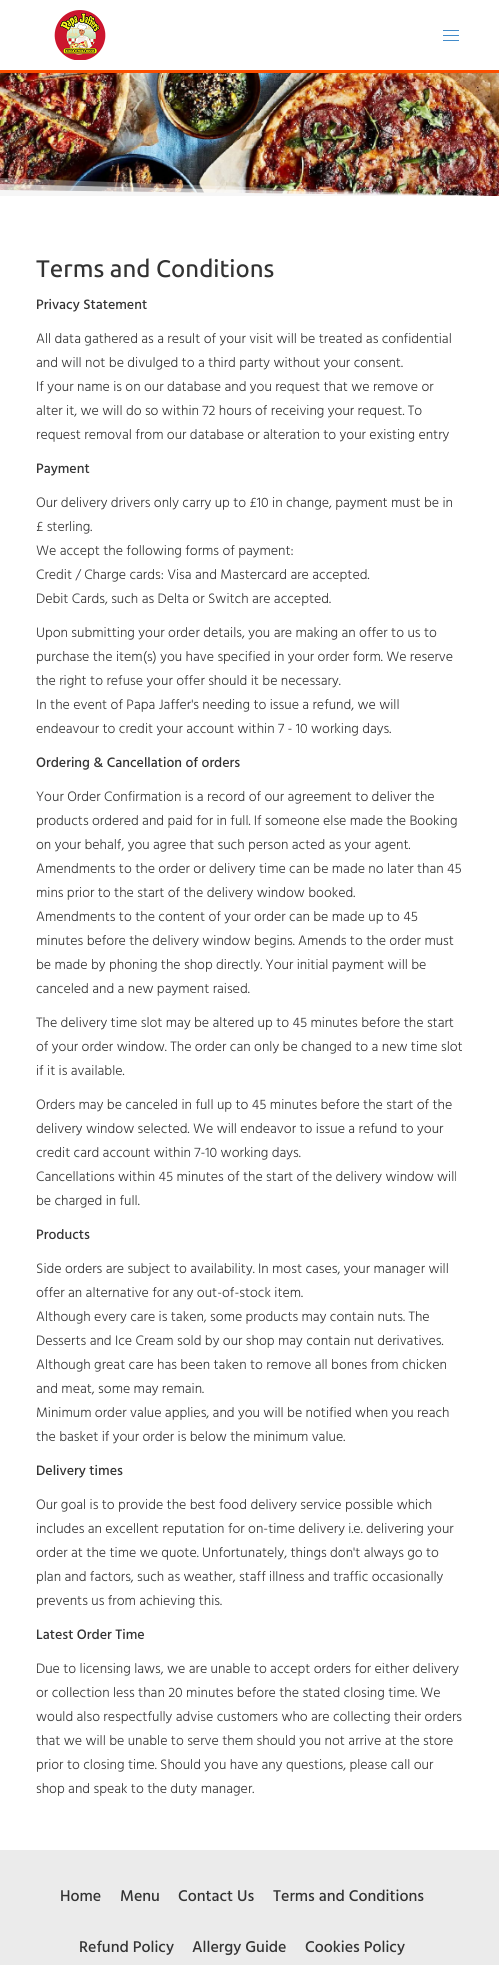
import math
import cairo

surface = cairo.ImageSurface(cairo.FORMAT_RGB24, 499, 1965)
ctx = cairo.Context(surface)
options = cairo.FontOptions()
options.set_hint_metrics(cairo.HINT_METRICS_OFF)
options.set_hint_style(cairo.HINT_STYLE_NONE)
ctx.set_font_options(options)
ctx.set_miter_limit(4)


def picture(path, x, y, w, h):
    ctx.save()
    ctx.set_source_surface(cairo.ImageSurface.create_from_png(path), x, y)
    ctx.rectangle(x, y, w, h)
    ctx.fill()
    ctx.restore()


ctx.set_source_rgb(1, 1, 1)
ctx.paint()
ctx.set_source_rgb(0.988, 0.31, 0)
ctx.rectangle(0, 70, 499, 3)
ctx.fill()
picture("img1.png", 54, 10, 52, 50)
ctx.set_source_rgb(0.259, 0.545, 0.792)
ctx.rectangle(443, 30, 16, 1)
ctx.fill()
ctx.rectangle(443, 35, 16, 1)
ctx.fill()
ctx.rectangle(443, 40, 16, 1)
ctx.fill()
picture("img2.png", 0, 73, 499, 123)
ctx.set_source_rgba(1, 1, 1, 0.3)
ctx.set_fill_rule(cairo.FILL_RULE_EVEN_ODD)
ctx.new_path()
ctx.move_to(0, 178)
ctx.line_to(488, 196)
ctx.line_to(0, 196)
ctx.close_path()
ctx.fill()
ctx.set_source_rgba(1, 1, 1, 0.6)
ctx.new_path()
ctx.move_to(0, 184)
ctx.line_to(488, 196)
ctx.line_to(0, 196)
ctx.close_path()
ctx.fill()
ctx.set_source_rgb(0.961, 0.961, 0.961)
ctx.new_path()
ctx.move_to(0, 190)
ctx.line_to(488, 196)
ctx.line_to(0, 196)
ctx.close_path()
ctx.fill()
ctx.select_font_face("Ubuntu Medium")
ctx.set_font_size(24)
ctx.set_source_rgb(0.2, 0.2, 0.2)
ctx.move_to(36, 277)
ctx.show_text("Terms and Conditions")
ctx.select_font_face("Hind Vadodara Medium")
ctx.set_font_size(14)
ctx.move_to(36, 309)
ctx.show_text("Privacy Statement")
ctx.select_font_face("Hind Vadodara Light")
ctx.move_to(36, 343)
ctx.show_text("All data gathered as a result of your visit will be treated as confidential")
ctx.move_to(36, 367)
ctx.show_text("and will not be divulged to a third party without your consent.")
ctx.move_to(36, 391)
ctx.show_text("If your name is on our database and you request that we remove or")
ctx.move_to(36, 415)
ctx.show_text("alter it, we will do so within 72 hours of receiving your request. To")
ctx.move_to(36, 439)
ctx.show_text("request removal from our database or alteration to your existing entry")
ctx.select_font_face("Hind Vadodara Medium")
ctx.move_to(36, 473)
ctx.show_text("Payment")
ctx.select_font_face("Hind Vadodara Light")
ctx.move_to(36, 507)
ctx.show_text("Our delivery drivers only carry up to £10 in change, payment must be in")
ctx.move_to(36, 531)
ctx.show_text("£ sterling.")
ctx.move_to(36, 555)
ctx.show_text("We accept the following forms of payment:")
ctx.move_to(36, 579)
ctx.show_text("Credit / Charge cards: Visa and Mastercard are accepted.")
ctx.move_to(36, 603)
ctx.show_text("Debit Cards, such as Delta or Switch are accepted.")
ctx.move_to(36, 637)
ctx.show_text("Upon submitting your order details, you are making an offer to us to")
ctx.move_to(36, 661)
ctx.show_text("purchase the item(s) you have specified in your order form. We reserve")
ctx.move_to(36, 685)
ctx.show_text("the right to refuse your offer should it be necessary.")
ctx.move_to(36, 709)
ctx.show_text("In the event of Papa Jaffer's needing to issue a refund, we will")
ctx.move_to(36, 733)
ctx.show_text("endeavour to credit your account within 7 - 10 working days.")
ctx.select_font_face("Hind Vadodara Medium")
ctx.move_to(36, 767)
ctx.show_text("Ordering & Cancellation of orders")
ctx.select_font_face("Hind Vadodara Light")
ctx.move_to(36, 801)
ctx.show_text("Your Order Confirmation is a record of our agreement to deliver the")
ctx.move_to(36, 825)
ctx.show_text("products ordered and paid for in full. If someone else made the Booking")
ctx.move_to(36, 849)
ctx.show_text("on your behalf, you agree that such person acted as your agent.")
ctx.move_to(36, 873)
ctx.show_text("Amendments to the order or delivery time can be made no later than 45")
ctx.move_to(36, 897)
ctx.show_text("mins prior to the start of the delivery window booked.")
ctx.move_to(36, 921)
ctx.show_text("Amendments to the content of your order can be made up to 45")
ctx.move_to(36, 945)
ctx.show_text("minutes before the delivery window begins. Amends to the order must")
ctx.move_to(36, 969)
ctx.show_text("be made by phoning the shop directly. Your initial payment will be")
ctx.move_to(36, 993)
ctx.show_text("canceled and a new payment raised.")
ctx.move_to(36, 1027)
ctx.show_text("The delivery time slot may be altered up to 45 minutes before the start")
ctx.move_to(36, 1051)
ctx.show_text("of your order window. The order can only be changed to a new time slot")
ctx.move_to(36, 1075)
ctx.show_text("if it is available.")
ctx.move_to(36, 1109)
ctx.show_text("Orders may be canceled in full up to 45 minutes before the start of the")
ctx.move_to(36, 1133)
ctx.show_text("delivery window selected. We will endeavor to issue a refund to your")
ctx.move_to(36, 1157)
ctx.show_text("credit card account within 7-10 working days.")
ctx.move_to(36, 1181)
ctx.show_text("Cancellations within 45 minutes of the start of the delivery window will")
ctx.move_to(36, 1205)
ctx.show_text("be charged in full.")
ctx.select_font_face("Hind Vadodara Medium")
ctx.move_to(36, 1239)
ctx.show_text("Products")
ctx.select_font_face("Hind Vadodara Light")
ctx.move_to(36, 1273)
ctx.show_text("Side orders are subject to availability. In most cases, your manager will")
ctx.move_to(36, 1297)
ctx.show_text("offer an alternative for any out-of-stock item.")
ctx.move_to(36, 1321)
ctx.show_text("Although every care is taken, some products may contain nuts. The")
ctx.move_to(36, 1345)
ctx.show_text("Desserts and Ice Cream sold by our shop may contain nut derivatives.")
ctx.move_to(36, 1369)
ctx.show_text("Although great care has been taken to remove all bones from chicken")
ctx.move_to(36, 1393)
ctx.show_text("and meat, some may remain.")
ctx.move_to(36, 1417)
ctx.show_text("Minimum order value applies, and you will be notified when you reach")
ctx.move_to(36, 1441)
ctx.show_text("the basket if your order is below the minimum value.")
ctx.select_font_face("Hind Vadodara Medium")
ctx.move_to(36, 1475)
ctx.show_text("Delivery times")
ctx.select_font_face("Hind Vadodara Light")
ctx.move_to(36, 1509)
ctx.show_text("Our goal is to provide the best food delivery service possible which")
ctx.move_to(36, 1533)
ctx.show_text("includes an excellent reputation for on-time delivery i.e. delivering your")
ctx.move_to(36, 1557)
ctx.show_text("order at the time we quote. Unfortunately, things don't always go to")
ctx.move_to(36, 1581)
ctx.show_text("plan and factors, such as weather, staff illness and traffic occasionally")
ctx.move_to(36, 1605)
ctx.show_text("prevents us from achieving this.")
ctx.select_font_face("Hind Vadodara Medium")
ctx.move_to(36, 1639)
ctx.show_text("Latest Order Time")
ctx.select_font_face("Hind Vadodara Light")
ctx.move_to(36, 1673)
ctx.show_text("Due to licensing laws, we are unable to accept orders for either delivery")
ctx.move_to(36, 1697)
ctx.show_text("or collection less than 20 minutes before the stated closing time. We")
ctx.move_to(36, 1721)
ctx.show_text("would also respectfully advise customers who are collecting their orders")
ctx.move_to(36, 1745)
ctx.show_text("that we will be unable to serve them should you not arrive at the store")
ctx.move_to(36, 1769)
ctx.show_text("prior to closing time. Should you have any questions, please call our")
ctx.move_to(36, 1793)
ctx.show_text("shop and speak to the duty manager.")
ctx.set_source_rgb(0.918, 0.918, 0.918)
ctx.rectangle(0, 1850, 499, 115)
ctx.fill()
ctx.select_font_face("Hind Vadodara Medium")
ctx.set_font_size(16)
ctx.set_source_rgb(0.2, 0.2, 0.2)
ctx.move_to(60, 1901)
ctx.show_text("Home")
ctx.move_to(120, 1901)
ctx.show_text("Menu")
ctx.move_to(178, 1901)
ctx.show_text("Contact Us")
ctx.move_to(273, 1901)
ctx.show_text("Terms and Conditions")
ctx.move_to(79, 1952)
ctx.show_text("Refund Policy")
ctx.move_to(192, 1952)
ctx.show_text("Allergy Guide")
ctx.move_to(305, 1952)
ctx.show_text("Cookies Policy")
surface.write_to_png("page.png")
